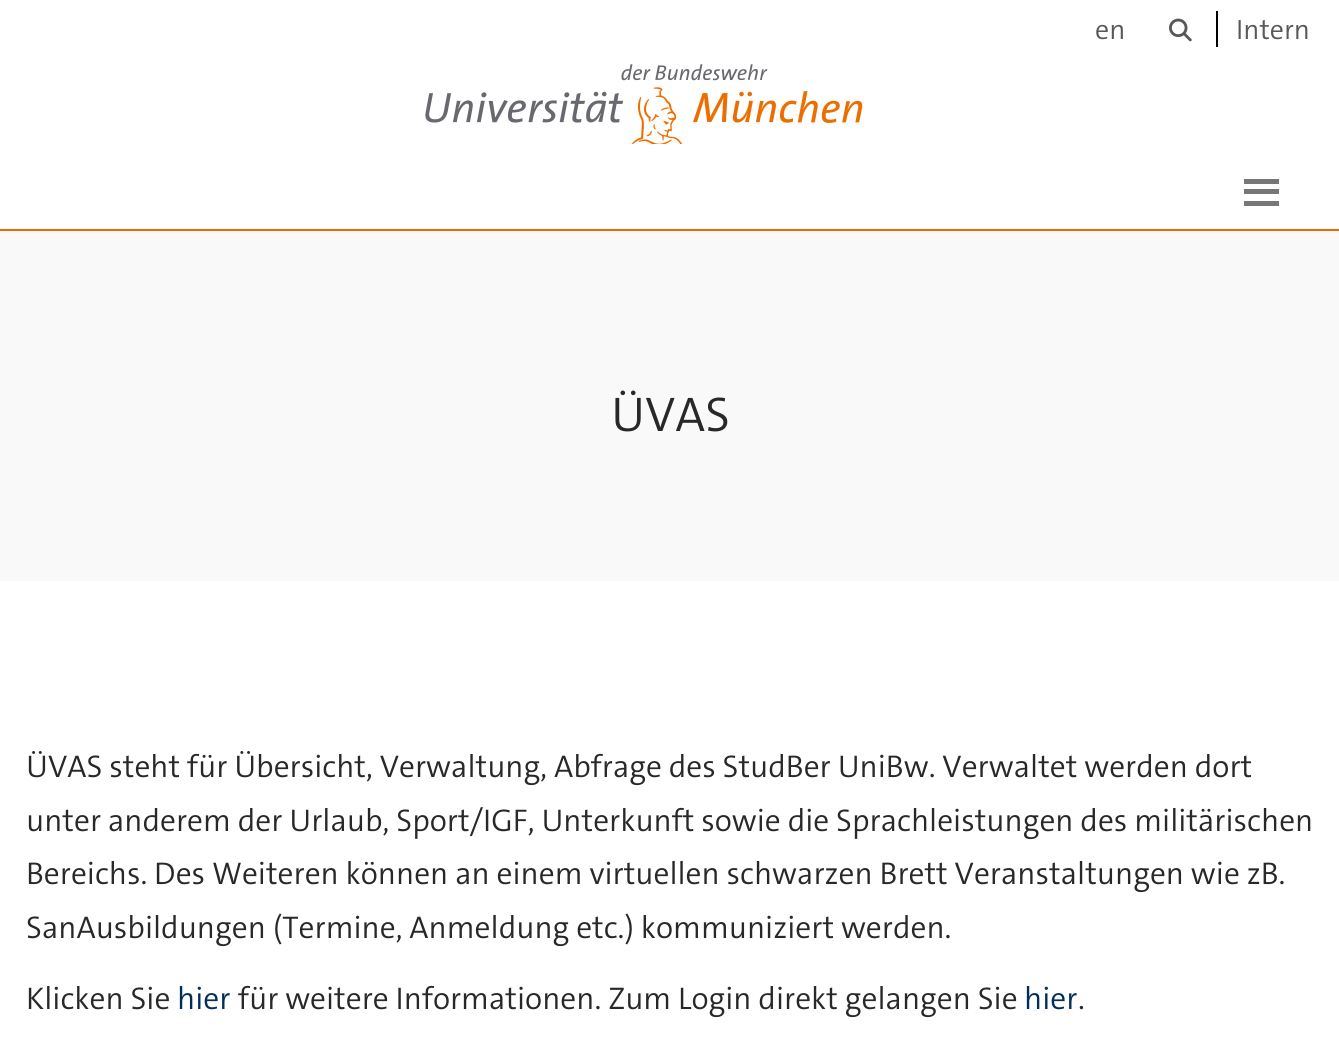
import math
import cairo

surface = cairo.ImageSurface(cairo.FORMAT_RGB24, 1339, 1059)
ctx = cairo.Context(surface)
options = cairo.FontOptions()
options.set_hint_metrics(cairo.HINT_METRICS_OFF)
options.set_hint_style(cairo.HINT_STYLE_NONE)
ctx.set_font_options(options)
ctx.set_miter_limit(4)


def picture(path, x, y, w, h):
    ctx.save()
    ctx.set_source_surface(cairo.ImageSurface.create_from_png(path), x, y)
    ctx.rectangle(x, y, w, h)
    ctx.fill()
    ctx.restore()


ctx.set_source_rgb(1, 1, 1)
ctx.paint()
ctx.set_source_rgb(0.929, 0.4, 0)
ctx.rectangle(0, 229, 1339, 2)
ctx.fill()
ctx.select_font_face("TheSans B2 Light")
ctx.set_font_size(28)
ctx.set_source_rgb(0.349, 0.345, 0.345)
ctx.move_to(1095, 39)
ctx.show_text("en")
picture("img1.png", 1169, 18, 23, 24)
ctx.move_to(1236, 39)
ctx.show_text("Intern")
ctx.set_source_rgb(0, 0, 0)
ctx.rectangle(1216, 11, 2, 36)
ctx.fill()
picture("img2.png", 632, 87, 50, 57)
picture("img3.png", 425, 64, 438, 59)
ctx.set_source_rgb(0.467, 0.467, 0.467)
ctx.rectangle(1244, 179, 35, 5)
ctx.fill()
ctx.rectangle(1244, 189, 35, 5)
ctx.fill()
ctx.rectangle(1244, 201, 35, 5)
ctx.fill()
ctx.set_source_rgb(0.973, 0.973, 0.973)
ctx.rectangle(0, 231, 1339, 350)
ctx.fill()
ctx.set_font_size(49)
ctx.set_source_rgb(0.157, 0.157, 0.157)
ctx.move_to(611, 431)
ctx.show_text("ÜVAS")
ctx.set_font_size(31.5)
ctx.move_to(26, 777)
ctx.show_text("ÜVAS steht für Übersicht, Verwaltung, Abfrage des StudBer UniBw. Verwaltet werden dort")
ctx.move_to(26, 831)
ctx.show_text("unter anderem der Urlaub, Sport/IGF, Unterkunft sowie die Sprachleistungen des militärischen")
ctx.move_to(26, 884)
ctx.show_text("Bereichs. Des Weiteren können an einem virtuellen schwarzen Brett Veranstaltungen wie zB.")
ctx.move_to(26, 938)
ctx.show_text("SanAusbildungen (Termine, Anmeldung etc.) kommuniziert werden.")
ctx.move_to(26, 1009)
ctx.show_text("Klicken Sie")
ctx.set_source_rgb(0, 0.18, 0.357)
ctx.move_to(177, 1009)
ctx.show_text("hier")
ctx.set_source_rgb(0.157, 0.157, 0.157)
ctx.move_to(238, 1009)
ctx.show_text("für weitere Informationen. Zum Login direkt gelangen Sie")
ctx.set_source_rgb(0, 0.18, 0.357)
ctx.move_to(1024, 1009)
ctx.show_text("hier")
ctx.set_source_rgb(0.157, 0.157, 0.157)
ctx.move_to(1078, 1009)
ctx.show_text(".")
surface.write_to_png("page.png")
